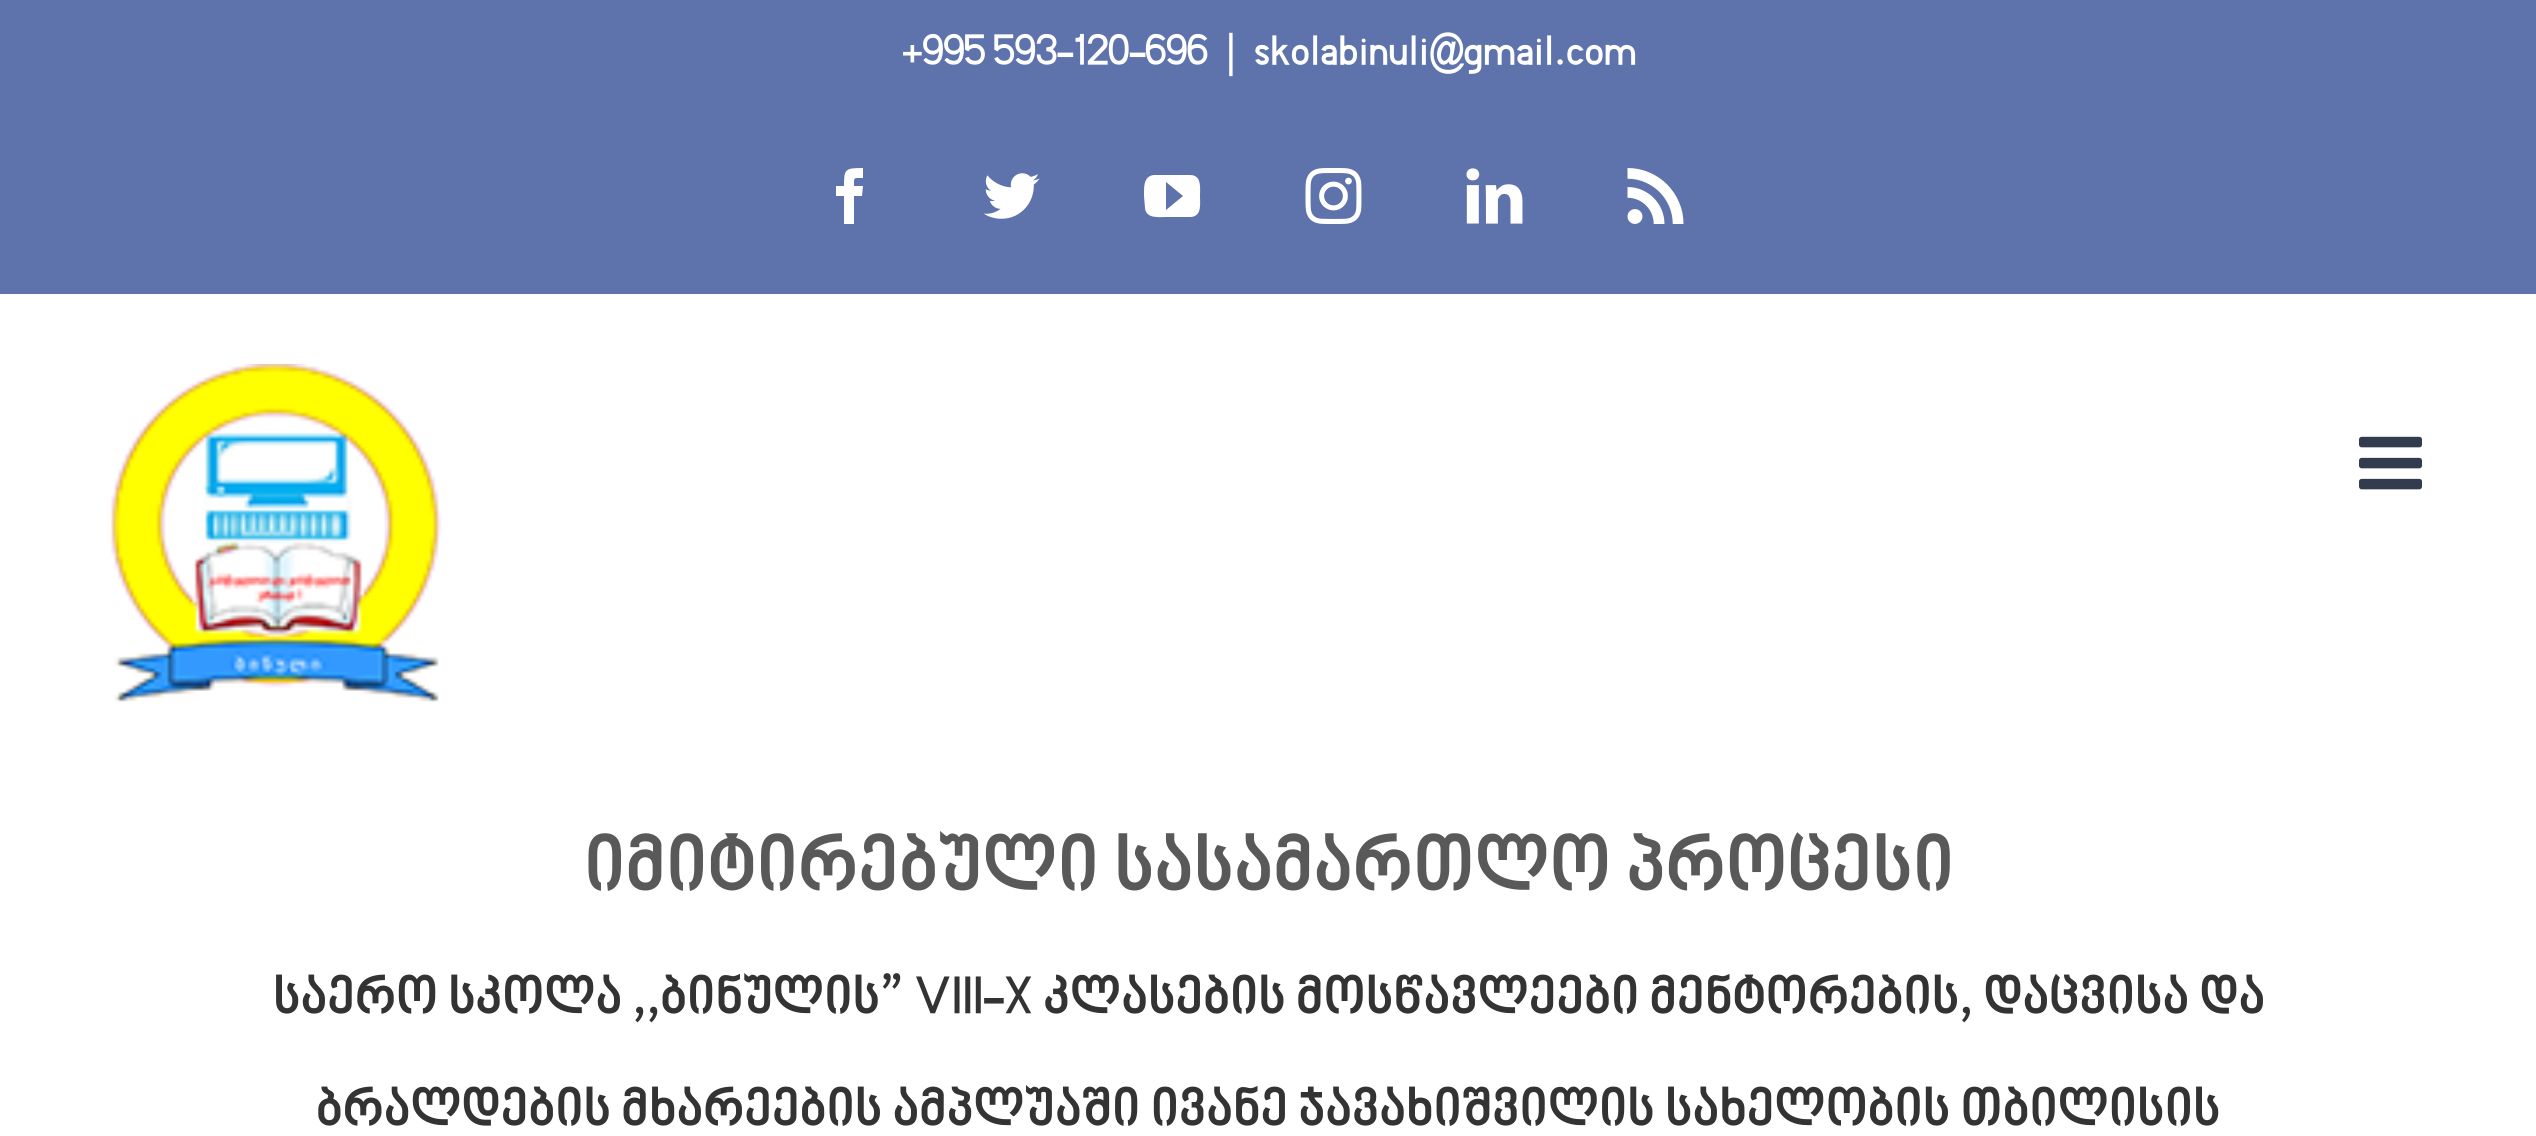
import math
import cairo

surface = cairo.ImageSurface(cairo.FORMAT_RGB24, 2536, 1136)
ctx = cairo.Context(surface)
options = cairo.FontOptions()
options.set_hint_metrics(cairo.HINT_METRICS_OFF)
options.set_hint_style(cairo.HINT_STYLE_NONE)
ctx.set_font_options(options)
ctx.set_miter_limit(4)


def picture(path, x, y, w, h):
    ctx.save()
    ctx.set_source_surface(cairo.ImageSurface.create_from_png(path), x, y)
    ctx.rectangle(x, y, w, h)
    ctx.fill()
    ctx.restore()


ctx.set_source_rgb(1, 1, 1)
ctx.paint()
ctx.set_source_rgb(0.369, 0.447, 0.671)
ctx.rectangle(0, 0, 2536, 294)
ctx.fill()
ctx.select_font_face("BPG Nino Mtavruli", cairo.FONT_SLANT_NORMAL, cairo.FONT_WEIGHT_BOLD)
ctx.set_font_size(42)
ctx.set_source_rgb(1, 1, 1)
ctx.move_to(901, 67)
ctx.show_text("+995 593-120-696")
ctx.move_to(1229, 67)
ctx.show_text("|")
ctx.move_to(1254, 67)
ctx.show_text("skolabinuli@gmail.com")
ctx.new_path()
ctx.move_to(854, 224)
ctx.line_to(844, 224)
ctx.line_to(844, 196)
ctx.line_to(836, 196)
ctx.line_to(836, 186)
ctx.line_to(844, 186)
ctx.curve_to(844, 169, 845, 168, 863, 168)
ctx.line_to(863, 178)
ctx.curve_to(853, 178, 854, 177, 854, 186)
ctx.line_to(863, 186)
ctx.line_to(862, 196)
ctx.line_to(854, 196)
ctx.close_path()
ctx.fill()
picture("img1.png", 983, 173, 57, 46)
ctx.new_path()
ctx.move_to(1190, 175)
ctx.line_to(1154, 175)
ctx.curve_to(1143, 176, 1144, 188, 1144, 196)
ctx.line_to(1145, 208)
ctx.curve_to(1146, 219, 1159, 217, 1167, 217)
ctx.line_to(1191, 217)
ctx.curve_to(1202, 216, 1200, 204, 1200, 196)
ctx.curve_to(1200, 188, 1202, 175, 1190, 175)
ctx.close_path()
ctx.move_to(1166, 210)
ctx.line_to(1166, 182)
ctx.line_to(1183, 196)
ctx.close_path()
ctx.fill()
picture("img2.png", 1305, 168, 57, 56)
picture("img3.png", 1466, 168, 57, 56)
picture("img4.png", 1627, 168, 57, 56)
picture("img5.png", 110, 364, 332, 338)
picture("img6.png", 2359, 436, 63, 54)
ctx.set_font_size(77)
ctx.set_source_rgb(0.349, 0.349, 0.349)
ctx.move_to(584, 894)
ctx.show_text("იმიტირებული სასამართლო პროცესი")
ctx.set_font_size(52.5)
ctx.set_source_rgb(0.2, 0.2, 0.2)
ctx.move_to(273, 1016)
ctx.show_text("საერო სკოლა ,,ბინულის” VIII-X კლასების მოსწავლეები მენტორების, დაცვისა და")
ctx.move_to(316, 1128)
ctx.show_text("ბრალდების მხარეების ამპლუაში ივანე ჯავახიშვილის სახელობის თბილისის")
surface.write_to_png("page.png")
